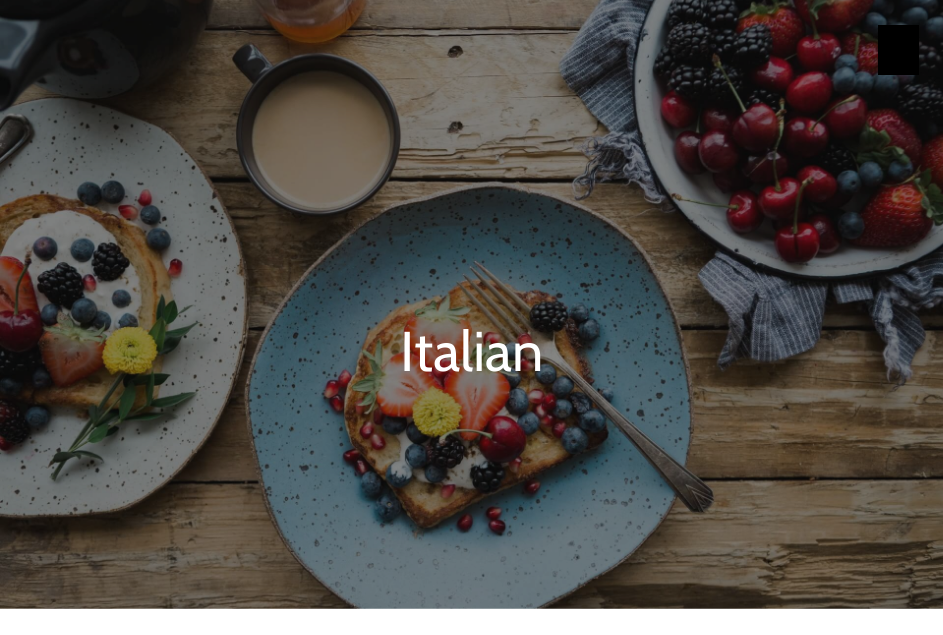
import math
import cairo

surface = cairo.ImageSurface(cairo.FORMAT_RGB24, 943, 635)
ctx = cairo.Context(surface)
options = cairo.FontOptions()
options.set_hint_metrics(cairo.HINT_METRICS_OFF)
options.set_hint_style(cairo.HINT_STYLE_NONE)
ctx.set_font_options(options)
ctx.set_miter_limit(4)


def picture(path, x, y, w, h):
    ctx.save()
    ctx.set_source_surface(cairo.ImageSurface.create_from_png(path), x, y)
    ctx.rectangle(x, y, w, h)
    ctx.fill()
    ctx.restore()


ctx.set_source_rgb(1, 1, 1)
ctx.paint()
picture("img1.png", 0, 0, 943, 609)
ctx.set_source_rgb(0, 0, 0)
ctx.rectangle(878, 25, 41, 50)
ctx.fill()
ctx.select_font_face("Cabin")
ctx.set_font_size(56)
ctx.set_source_rgb(1, 1, 1)
ctx.move_to(400, 371)
ctx.show_text("Italian")
surface.write_to_png("page.png")
